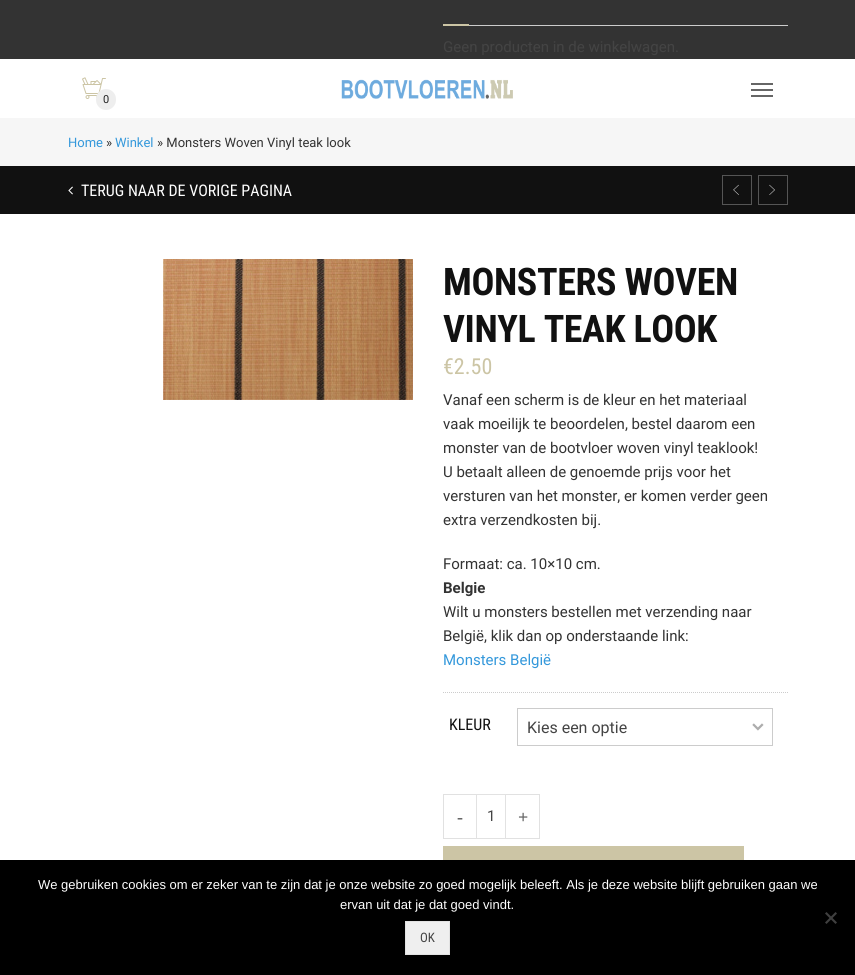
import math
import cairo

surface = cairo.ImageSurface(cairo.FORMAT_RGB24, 855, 975)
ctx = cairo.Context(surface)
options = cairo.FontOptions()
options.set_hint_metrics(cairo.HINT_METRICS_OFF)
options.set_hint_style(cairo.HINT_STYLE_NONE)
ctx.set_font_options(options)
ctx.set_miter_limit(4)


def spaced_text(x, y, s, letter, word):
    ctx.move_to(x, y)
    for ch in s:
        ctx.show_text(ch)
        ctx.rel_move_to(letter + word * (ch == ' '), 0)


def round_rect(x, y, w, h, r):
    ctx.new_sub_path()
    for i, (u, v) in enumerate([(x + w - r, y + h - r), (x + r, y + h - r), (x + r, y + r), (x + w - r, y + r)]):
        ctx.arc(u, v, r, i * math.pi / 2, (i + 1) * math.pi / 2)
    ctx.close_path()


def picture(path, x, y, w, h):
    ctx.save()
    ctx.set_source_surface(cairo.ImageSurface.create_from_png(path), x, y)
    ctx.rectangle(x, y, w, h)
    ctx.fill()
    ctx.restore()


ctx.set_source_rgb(1, 1, 1)
ctx.paint()
ctx.set_source_rgb(0.2, 0.2, 0.2)
ctx.rectangle(0, 0, 855, 59)
ctx.fill()
ctx.set_source_rgb(0.8, 0.8, 0.8)
ctx.rectangle(469, 25, 319, 1)
ctx.fill()
ctx.set_source_rgb(0.8, 0.773, 0.647)
ctx.rectangle(443, 24, 26, 2)
ctx.fill()
ctx.select_font_face("Roboto")
ctx.set_font_size(15)
ctx.set_source_rgb(0.267, 0.267, 0.267)
ctx.move_to(443, 52)
ctx.show_text("Geen producten in de winkelwagen.")
picture("img1.png", 82, 77, 24, 22)
ctx.set_source_rgb(0.933, 0.933, 0.933)
round_rect(96, 89, 20, 21, 10)
ctx.fill()
ctx.set_font_size(11)
ctx.set_source_rgb(0.133, 0.133, 0.133)
ctx.move_to(103, 103)
ctx.show_text("0")
picture("img2.png", 341, 79, 172, 20)
ctx.set_source_rgb(0.4, 0.4, 0.4)
ctx.rectangle(751, 83, 22, 2)
ctx.fill()
ctx.rectangle(751, 89, 22, 2)
ctx.fill()
ctx.rectangle(751, 95, 22, 2)
ctx.fill()
ctx.set_source_rgb(0.961, 0.961, 0.961)
ctx.rectangle(0, 118, 855, 48)
ctx.fill()
ctx.set_font_size(13)
ctx.set_source_rgb(0.204, 0.596, 0.859)
ctx.move_to(68, 147)
ctx.show_text("Home")
ctx.set_source_rgb(0.2, 0.2, 0.2)
ctx.move_to(106, 147)
ctx.show_text("»")
ctx.set_source_rgb(0.204, 0.596, 0.859)
ctx.move_to(115, 147)
ctx.show_text("Winkel")
ctx.set_source_rgb(0.2, 0.2, 0.2)
ctx.move_to(157, 147)
ctx.show_text("» Monsters Woven Vinyl teak look")
ctx.set_source_rgb(0.067, 0.067, 0.067)
ctx.rectangle(0, 166, 855, 48)
ctx.fill()
picture("img3.png", 68, 186, 5, 9)
ctx.select_font_face("Roboto Condensed")
ctx.set_font_size(16)
ctx.set_source_rgb(1, 1, 1)
ctx.move_to(81, 196)
ctx.show_text("TERUG NAAR DE VORIGE PAGINA")
ctx.rectangle(722.5, 175.5, 29, 29)
ctx.set_source_rgb(0.333, 0.333, 0.333)
ctx.set_line_width(1)
ctx.stroke()
picture("img4.png", 733, 184, 6, 11)
ctx.rectangle(758.5, 175.5, 29, 29)
ctx.stroke()
picture("img5.png", 769, 184, 6, 11)
picture("img6.png", 163, 259, 250, 141)
ctx.select_font_face("Roboto Condensed", cairo.FONT_SLANT_NORMAL, cairo.FONT_WEIGHT_BOLD)
ctx.set_font_size(38)
ctx.set_source_rgb(0.067, 0.067, 0.067)
spaced_text(443, 295, "MONSTERS WOVEN", -0.4, 0)
spaced_text(443, 342, "VINYL TEAK LOOK", -0.4, 0)
ctx.select_font_face("Roboto Condensed")
ctx.set_font_size(22)
ctx.set_source_rgb(0.8, 0.773, 0.647)
ctx.move_to(443, 374)
ctx.show_text("€2.50")
ctx.select_font_face("Roboto")
ctx.set_font_size(15)
ctx.set_source_rgb(0.2, 0.2, 0.2)
ctx.move_to(443, 405)
ctx.show_text("Vanaf een scherm is de kleur en het materiaal")
ctx.move_to(443, 429)
ctx.show_text("vaak moeilijk te beoordelen, bestel daarom een")
ctx.move_to(443, 453)
ctx.show_text("monster van de bootvloer woven vinyl teaklook!")
ctx.move_to(443, 477)
ctx.show_text("U betaalt alleen de genoemde prijs voor het")
ctx.move_to(443, 501)
ctx.show_text("versturen van het monster, er komen verder geen")
ctx.move_to(443, 525)
ctx.show_text("extra verzendkosten bij.")
ctx.move_to(443, 569)
ctx.show_text("Formaat: ca. 10×10 cm.")
ctx.select_font_face("Roboto", cairo.FONT_SLANT_NORMAL, cairo.FONT_WEIGHT_BOLD)
ctx.move_to(443, 593)
ctx.show_text("Belgie")
ctx.select_font_face("Roboto")
ctx.move_to(443, 617)
ctx.show_text("Wilt u monsters bestellen met verzending naar")
ctx.move_to(443, 641)
ctx.show_text("België, klik dan op onderstaande link:")
ctx.set_source_rgb(0.204, 0.596, 0.859)
ctx.move_to(443, 665)
ctx.show_text("Monsters België")
ctx.new_path()
ctx.move_to(443, 692.5)
ctx.line_to(788, 692.5)
ctx.set_source_rgb(0.8, 0.8, 0.8)
ctx.set_dash([1, 1])
ctx.stroke()
ctx.select_font_face("Roboto Condensed")
ctx.set_font_size(16)
ctx.set_source_rgb(0.067, 0.067, 0.067)
ctx.move_to(449, 730)
ctx.show_text("KLEUR")
picture("img7.png", 752, 723, 12, 8)
ctx.rectangle(517.5, 708.5, 255, 37)
ctx.set_source_rgb(0.8, 0.8, 0.8)
ctx.set_dash([])
ctx.stroke()
ctx.select_font_face("Roboto")
ctx.set_source_rgb(0.267, 0.267, 0.267)
ctx.move_to(527, 733)
ctx.show_text("Kies een optie")
ctx.rectangle(443.5, 794.5, 34, 44)
ctx.set_source_rgb(0.882, 0.882, 0.882)
ctx.stroke()
ctx.select_font_face("Liberation Serif", cairo.FONT_SLANT_NORMAL, cairo.FONT_WEIGHT_BOLD)
ctx.set_font_size(18)
ctx.set_source_rgb(0.4, 0.4, 0.4)
ctx.move_to(457, 823)
ctx.show_text("-")
ctx.set_source_rgb(1, 1, 1)
ctx.rectangle(477, 795, 1, 43)
ctx.fill()
ctx.rectangle(505.5, 794.5, 34, 44)
ctx.set_source_rgb(0.882, 0.882, 0.882)
ctx.stroke()
ctx.rectangle(476.5, 794.5, 29, 44)
ctx.set_source_rgb(0.886, 0.886, 0.886)
ctx.stroke()
ctx.select_font_face("Roboto")
ctx.set_font_size(15)
ctx.set_source_rgb(0.267, 0.267, 0.267)
ctx.move_to(487, 821)
ctx.show_text("1")
ctx.select_font_face("Liberation Serif", cairo.FONT_SLANT_NORMAL, cairo.FONT_WEIGHT_BOLD)
ctx.set_font_size(18)
ctx.set_source_rgb(0.4, 0.4, 0.4)
ctx.move_to(518, 823)
ctx.show_text("+")
ctx.set_source_rgb(0.8, 0.773, 0.647)
ctx.rectangle(443, 846, 301, 14)
ctx.fill()
ctx.set_source_rgb(0, 0, 0)
ctx.rectangle(0, 860, 855, 115)
ctx.fill()
ctx.select_font_face("Liberation Sans")
ctx.set_font_size(13)
ctx.set_source_rgb(1, 1, 1)
ctx.move_to(38, 889)
ctx.show_text("We gebruiken cookies om er zeker van te zijn dat je onze website zo goed mogelijk beleeft. Als je deze website blijft gebruiken gaan we")
ctx.move_to(340, 909)
ctx.show_text("ervan uit dat je dat goed vindt.")
ctx.set_source_rgb(0.251, 0.251, 0.251)
ctx.new_path()
ctx.move_to(835.5, 912)
ctx.line_to(837, 913.5)
ctx.line_to(826.5, 924)
ctx.line_to(825, 922.5)
ctx.close_path()
ctx.fill()
ctx.new_path()
ctx.move_to(825, 913.5)
ctx.line_to(826.5, 912)
ctx.line_to(837, 922.5)
ctx.line_to(835.5, 924)
ctx.close_path()
ctx.fill()
ctx.set_source_rgb(0.937, 0.937, 0.937)
ctx.rectangle(405.5, 921.5, 44, 33)
ctx.fill_preserve()
ctx.set_source_rgb(0.886, 0.886, 0.886)
ctx.stroke()
ctx.select_font_face("Roboto Condensed")
ctx.set_source_rgb(0.267, 0.267, 0.267)
ctx.move_to(420, 942)
ctx.show_text("OK")
surface.write_to_png("page.png")
